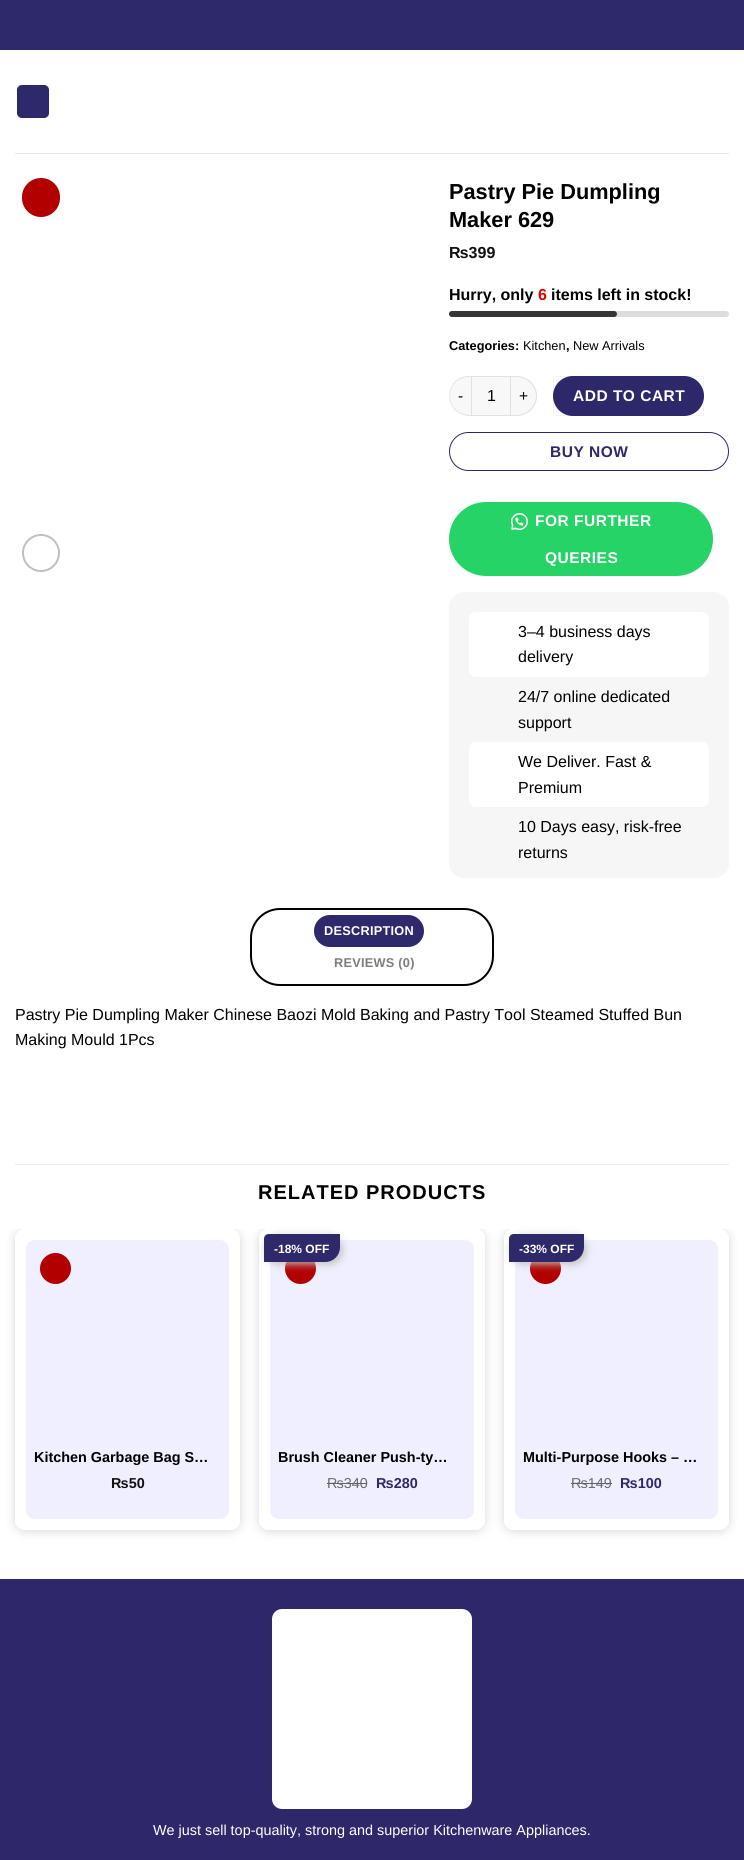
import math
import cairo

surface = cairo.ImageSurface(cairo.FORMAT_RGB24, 744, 1860)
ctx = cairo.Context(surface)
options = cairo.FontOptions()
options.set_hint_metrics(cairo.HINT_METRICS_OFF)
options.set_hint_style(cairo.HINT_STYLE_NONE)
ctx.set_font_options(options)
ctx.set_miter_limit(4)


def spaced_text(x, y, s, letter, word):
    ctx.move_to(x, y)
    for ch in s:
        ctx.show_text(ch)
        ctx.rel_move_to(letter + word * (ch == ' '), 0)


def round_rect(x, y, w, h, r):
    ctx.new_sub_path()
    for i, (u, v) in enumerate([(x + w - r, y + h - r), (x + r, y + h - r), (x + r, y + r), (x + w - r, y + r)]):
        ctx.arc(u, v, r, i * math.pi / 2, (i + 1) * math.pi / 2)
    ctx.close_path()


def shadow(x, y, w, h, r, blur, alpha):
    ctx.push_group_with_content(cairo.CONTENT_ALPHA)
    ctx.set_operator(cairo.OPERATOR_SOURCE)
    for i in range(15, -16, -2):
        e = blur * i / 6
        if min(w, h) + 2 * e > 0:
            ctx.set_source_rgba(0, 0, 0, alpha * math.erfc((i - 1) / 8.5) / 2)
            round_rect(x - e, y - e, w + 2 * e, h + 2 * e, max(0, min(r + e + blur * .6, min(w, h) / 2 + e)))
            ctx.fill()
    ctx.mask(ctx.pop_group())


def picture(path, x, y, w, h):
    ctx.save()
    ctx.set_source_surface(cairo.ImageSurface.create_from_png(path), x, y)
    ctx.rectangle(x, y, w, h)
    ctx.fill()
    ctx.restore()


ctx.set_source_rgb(1, 1, 1)
ctx.paint()
ctx.set_source_rgb(0.18, 0.161, 0.42)
ctx.rectangle(0, 0, 744, 50)
ctx.fill()
round_rect(17, 85, 32, 33, 5)
ctx.fill()
ctx.rectangle(17.5, 85.5, 31, 32)
ctx.set_source_rgba(0, 0, 0, 0.05)
ctx.set_line_width(1)
ctx.stroke()
ctx.set_source_rgb(0.902, 0.902, 0.902)
ctx.rectangle(15, 153, 714, 1)
ctx.fill()
ctx.set_source_rgb(0.698, 0, 0)
round_rect(22, 178, 38, 39, 19)
ctx.fill()
ctx.arc(41, 553, 18, 0, 2 * math.pi)
ctx.set_source_rgb(0.753, 0.753, 0.753)
ctx.set_line_width(2)
ctx.stroke()
ctx.select_font_face("Liberation Sans", cairo.FONT_SLANT_NORMAL, cairo.FONT_WEIGHT_BOLD)
ctx.set_font_size(21.75)
ctx.set_source_rgb(0, 0, 0)
ctx.move_to(449, 199)
ctx.show_text("Pastry Pie Dumpling")
ctx.move_to(449, 227)
ctx.show_text("Maker 629")
ctx.set_font_size(16)
ctx.set_source_rgb(0.067, 0.067, 0.067)
ctx.move_to(449, 258)
ctx.show_text("₨399")
ctx.set_source_rgb(0, 0, 0)
ctx.move_to(449, 300)
ctx.show_text("Hurry, only")
ctx.set_source_rgb(0.898, 0, 0)
ctx.move_to(538, 300)
ctx.show_text("6")
ctx.set_source_rgb(0, 0, 0)
ctx.move_to(551, 300)
ctx.show_text("items left in stock!")
ctx.set_source_rgb(0.867, 0.867, 0.867)
round_rect(449, 311, 280, 6, 3)
ctx.fill()
ctx.set_source_rgb(0.212, 0.212, 0.212)
round_rect(449, 311, 168, 6, 3)
ctx.fill()
ctx.set_font_size(12.75)
ctx.set_source_rgb(0, 0, 0)
ctx.move_to(449, 350)
ctx.show_text("Categories:")
ctx.select_font_face("Liberation Sans")
ctx.move_to(523, 350)
ctx.show_text("Kitchen")
ctx.select_font_face("Liberation Sans", cairo.FONT_SLANT_NORMAL, cairo.FONT_WEIGHT_BOLD)
ctx.move_to(566, 350)
ctx.show_text(",")
ctx.select_font_face("Liberation Sans")
ctx.move_to(573, 350)
ctx.show_text("New Arrivals")
ctx.set_source_rgb(0.969, 0.969, 0.969)
ctx.new_path()
ctx.move_to(469, 376)
ctx.line_to(471, 376)
ctx.line_to(471, 416)
ctx.line_to(469, 416)
ctx.curve_to(458, 416, 449, 407, 449, 396)
ctx.curve_to(449, 385, 458, 376, 469, 376)
ctx.close_path()
ctx.fill()
ctx.set_source_rgba(0, 0, 0, 0.09)
ctx.set_fill_rule(cairo.FILL_RULE_EVEN_ODD)
ctx.new_path()
ctx.move_to(469, 376)
ctx.line_to(471, 376)
ctx.line_to(471, 416)
ctx.curve_to(442, 416, 443, 376, 469, 376)
ctx.close_path()
ctx.move_to(469, 377)
ctx.line_to(471, 377)
ctx.line_to(471, 415)
ctx.curve_to(443, 415, 444, 377, 469, 377)
ctx.close_path()
ctx.fill()
ctx.set_font_size(15.5)
ctx.set_source_rgb(0, 0, 0)
spaced_text(458, 401, "-", 0.5, 0)
ctx.set_source_rgb(0.969, 0.969, 0.969)
ctx.rectangle(471.5, 376.5, 39, 39)
ctx.fill_preserve()
ctx.set_source_rgb(0.882, 0.882, 0.882)
ctx.set_line_width(1)
ctx.stroke()
ctx.set_font_size(16)
ctx.set_source_rgb(0, 0, 0)
ctx.move_to(487, 401)
ctx.show_text("1")
ctx.set_source_rgb(0.969, 0.969, 0.969)
ctx.new_path()
ctx.move_to(511, 376)
ctx.line_to(517, 376)
ctx.curve_to(528, 376, 537, 385, 537, 396)
ctx.curve_to(537, 407, 528, 416, 517, 416)
ctx.line_to(511, 416)
ctx.close_path()
ctx.fill()
ctx.set_source_rgba(0, 0, 0, 0.09)
ctx.new_path()
ctx.move_to(511, 376)
ctx.line_to(517, 376)
ctx.curve_to(528, 376, 537, 385, 537, 396)
ctx.curve_to(537, 407, 528, 416, 517, 416)
ctx.line_to(511, 416)
ctx.close_path()
ctx.move_to(511, 377)
ctx.line_to(517, 377)
ctx.curve_to(527, 377, 536, 386, 536, 396)
ctx.curve_to(536, 406, 527, 415, 517, 415)
ctx.line_to(511, 415)
ctx.close_path()
ctx.fill()
ctx.set_font_size(15.5)
ctx.set_source_rgb(0, 0, 0)
spaced_text(519, 401, "+", 0.5, 0)
ctx.set_source_rgb(0.176, 0.157, 0.416)
round_rect(553, 376, 151, 40, 20)
ctx.fill()
ctx.rectangle(553.5, 376.5, 150, 39)
ctx.set_source_rgba(0, 0, 0, 0.05)
ctx.stroke()
ctx.select_font_face("Liberation Sans", cairo.FONT_SLANT_NORMAL, cairo.FONT_WEIGHT_BOLD)
ctx.set_source_rgb(1, 1, 1)
spaced_text(573, 401, "ADD TO CART", 0.5, 0)
round_rect(449.5, 432.5, 279, 38, 19)
ctx.set_source_rgb(0.176, 0.157, 0.416)
ctx.stroke()
ctx.set_source_rgb(0.18, 0.161, 0.42)
spaced_text(550, 457, "BUY NOW", 0.5, 0)
ctx.set_source_rgb(0.145, 0.827, 0.4)
round_rect(449, 502, 264, 74, 37)
ctx.fill()
picture("img1.png", 511, 513, 17, 17)
ctx.set_source_rgb(1, 1, 1)
spaced_text(535, 526, "FOR FURTHER", 0.5, 0)
spaced_text(545, 563, "QUERIES", 0.5, 0)
ctx.set_source_rgb(0.961, 0.961, 0.961)
round_rect(449, 592, 280, 286, 15)
ctx.fill()
ctx.set_source_rgb(1, 1, 1)
round_rect(469, 612, 240, 65, 7)
ctx.fill()
ctx.select_font_face("Liberation Sans")
ctx.set_font_size(16)
ctx.set_source_rgb(0, 0, 0)
ctx.move_to(518, 637)
ctx.show_text("3–4 business days")
ctx.move_to(518, 662)
ctx.show_text("delivery")
ctx.move_to(518, 702)
ctx.show_text("24/7 online dedicated")
ctx.move_to(518, 728)
ctx.show_text("support")
ctx.set_source_rgb(1, 1, 1)
round_rect(469, 742, 240, 65, 7)
ctx.fill()
ctx.set_source_rgb(0, 0, 0)
ctx.move_to(518, 767)
ctx.show_text("We Deliver. Fast &")
ctx.move_to(518, 793)
ctx.show_text("Premium")
ctx.move_to(518, 832)
ctx.show_text("10 Days easy, risk-free")
ctx.move_to(518, 858)
ctx.show_text("returns")
round_rect(251, 909, 242, 76, 29)
ctx.set_line_width(2)
ctx.stroke()
ctx.set_source_rgb(0.18, 0.161, 0.42)
round_rect(314, 915, 110, 32, 16)
ctx.fill()
ctx.select_font_face("Liberation Sans", cairo.FONT_SLANT_NORMAL, cairo.FONT_WEIGHT_BOLD)
ctx.set_font_size(12.75)
ctx.set_source_rgb(1, 1, 1)
spaced_text(324, 935, "DESCRIPTION", 0.25, 0)
ctx.set_source_rgb(0.49, 0.49, 0.49)
spaced_text(334, 967, "REVIEWS (0)", 0.25, 0)
ctx.select_font_face("Liberation Sans")
ctx.set_font_size(16)
ctx.set_source_rgb(0, 0, 0)
ctx.move_to(15, 1020)
ctx.show_text("Pastry Pie Dumpling Maker Chinese Baozi Mold Baking and Pastry Tool Steamed Stuffed Bun")
ctx.move_to(15, 1045)
ctx.show_text("Making Mould 1Pcs")
ctx.set_source_rgb(0.925, 0.925, 0.925)
ctx.rectangle(15, 1164, 714, 1)
ctx.fill()
ctx.select_font_face("Liberation Sans", cairo.FONT_SLANT_NORMAL, cairo.FONT_WEIGHT_BOLD)
ctx.set_font_size(20)
ctx.set_source_rgb(0, 0, 0)
spaced_text(258, 1199, "RELATED PRODUCTS", 1, 0)
ctx.save()
ctx.set_fill_rule(cairo.FILL_RULE_WINDING)
ctx.rectangle(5, 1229, 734, 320)
ctx.clip()
ctx.set_fill_rule(cairo.FILL_RULE_EVEN_ODD)
ctx.new_path()
ctx.move_to(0, 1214)
ctx.line_to(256, 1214)
ctx.line_to(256, 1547)
ctx.line_to(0, 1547)
ctx.close_path()
ctx.move_to(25, 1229)
ctx.line_to(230, 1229)
ctx.curve_to(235.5, 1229, 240, 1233.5, 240, 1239)
ctx.line_to(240, 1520)
ctx.curve_to(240, 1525.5, 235.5, 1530, 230, 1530)
ctx.line_to(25, 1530)
ctx.curve_to(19.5, 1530, 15, 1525.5, 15, 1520)
ctx.line_to(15, 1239)
ctx.curve_to(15, 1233.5, 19.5, 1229, 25, 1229)
ctx.close_path()
ctx.clip()
ctx.set_source_rgb(0.482, 0.463, 0.463)
shadow(15, 1230, 225, 301, 10, 5, 0.3)
ctx.restore()
round_rect(17.5, 1231.5, 220, 296, 7.5)
ctx.set_source_rgb(1, 1, 1)
ctx.set_line_width(5)
ctx.stroke()
ctx.set_source_rgb(0.941, 0.937, 1)
round_rect(25.5, 1239.5, 204, 280, 9.5)
ctx.fill_preserve()
ctx.set_source_rgb(1, 1, 1)
ctx.set_line_width(1)
ctx.stroke()
ctx.set_source_rgb(0.698, 0, 0)
ctx.arc(55.5, 1268.5, 15.5, 0, 2 * math.pi)
ctx.fill()
ctx.set_font_size(14.4)
ctx.set_source_rgb(0, 0, 0)
ctx.move_to(34, 1462)
ctx.show_text("Kitchen Garbage Bag S…")
ctx.set_source_rgb(0.067, 0.067, 0.067)
ctx.move_to(111, 1488)
ctx.show_text("₨50")
ctx.save()
ctx.set_fill_rule(cairo.FILL_RULE_WINDING)
ctx.rectangle(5, 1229, 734, 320)
ctx.clip()
ctx.set_fill_rule(cairo.FILL_RULE_EVEN_ODD)
ctx.new_path()
ctx.move_to(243, 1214)
ctx.line_to(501, 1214)
ctx.line_to(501, 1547)
ctx.line_to(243, 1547)
ctx.close_path()
ctx.move_to(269, 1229)
ctx.line_to(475, 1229)
ctx.curve_to(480.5, 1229, 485, 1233.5, 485, 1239)
ctx.line_to(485, 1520)
ctx.curve_to(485, 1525.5, 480.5, 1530, 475, 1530)
ctx.line_to(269, 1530)
ctx.curve_to(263.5, 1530, 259, 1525.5, 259, 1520)
ctx.line_to(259, 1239)
ctx.curve_to(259, 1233.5, 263.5, 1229, 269, 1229)
ctx.close_path()
ctx.clip()
ctx.set_source_rgb(0.482, 0.463, 0.463)
shadow(259, 1230, 226, 301, 10, 5, 0.3)
ctx.restore()
round_rect(261.5, 1231.5, 221, 296, 7.5)
ctx.set_source_rgb(1, 1, 1)
ctx.set_line_width(5)
ctx.stroke()
ctx.set_source_rgb(0.941, 0.937, 1)
round_rect(269.5, 1239.5, 205, 280, 9.5)
ctx.fill_preserve()
ctx.set_source_rgb(1, 1, 1)
ctx.set_line_width(1)
ctx.stroke()
ctx.set_source_rgb(0.698, 0, 0)
ctx.arc(300.5, 1268.5, 15.5, 0, 2 * math.pi)
ctx.fill()
ctx.set_source_rgb(0.749, 0.749, 0.749)
shadow(266, 1236, 76, 28, 15, 4, 1)
ctx.set_source_rgb(0.18, 0.161, 0.42)
ctx.new_path()
ctx.move_to(269, 1234)
ctx.line_to(340, 1234)
ctx.line_to(340, 1247)
ctx.curve_to(340, 1255.5, 333.5, 1262, 325, 1262)
ctx.line_to(264, 1262)
ctx.line_to(264, 1239)
ctx.curve_to(264, 1236, 266, 1234, 269, 1234)
ctx.close_path()
ctx.fill()
ctx.set_font_size(12)
ctx.set_source_rgb(1, 1, 1)
ctx.move_to(274, 1253)
ctx.show_text("-18% OFF")
ctx.set_font_size(14.4)
ctx.set_source_rgb(0, 0, 0)
ctx.move_to(278, 1462)
ctx.show_text("Brush Cleaner Push-ty…")
ctx.select_font_face("Liberation Sans")
ctx.set_source_rgb(0.416, 0.416, 0.439)
ctx.move_to(327, 1488)
ctx.show_text("₨340")
ctx.set_source_rgb(0.376, 0.376, 0.4)
ctx.rectangle(327, 1483, 40, 1)
ctx.fill()
ctx.select_font_face("Liberation Sans", cairo.FONT_SLANT_NORMAL, cairo.FONT_WEIGHT_BOLD)
ctx.set_source_rgb(0.18, 0.161, 0.42)
ctx.move_to(376, 1488)
ctx.show_text("₨280")
ctx.save()
ctx.set_fill_rule(cairo.FILL_RULE_WINDING)
ctx.rectangle(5, 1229, 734, 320)
ctx.clip()
ctx.set_fill_rule(cairo.FILL_RULE_EVEN_ODD)
ctx.new_path()
ctx.move_to(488, 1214)
ctx.line_to(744, 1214)
ctx.line_to(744, 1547)
ctx.line_to(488, 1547)
ctx.close_path()
ctx.move_to(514, 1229)
ctx.line_to(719, 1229)
ctx.curve_to(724.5, 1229, 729, 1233.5, 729, 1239)
ctx.line_to(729, 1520)
ctx.curve_to(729, 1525.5, 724.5, 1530, 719, 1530)
ctx.line_to(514, 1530)
ctx.curve_to(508.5, 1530, 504, 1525.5, 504, 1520)
ctx.line_to(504, 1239)
ctx.curve_to(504, 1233.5, 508.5, 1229, 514, 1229)
ctx.close_path()
ctx.clip()
ctx.set_source_rgb(0.482, 0.463, 0.463)
shadow(504, 1230, 225, 301, 10, 5, 0.3)
ctx.restore()
round_rect(506.5, 1231.5, 220, 296, 7.5)
ctx.set_source_rgb(1, 1, 1)
ctx.set_line_width(5)
ctx.stroke()
ctx.set_source_rgb(0.941, 0.937, 1)
round_rect(514.5, 1239.5, 204, 280, 9.5)
ctx.fill_preserve()
ctx.set_source_rgb(1, 1, 1)
ctx.set_line_width(1)
ctx.stroke()
ctx.set_source_rgb(0.698, 0, 0)
ctx.arc(545.5, 1268.5, 15.5, 0, 2 * math.pi)
ctx.fill()
ctx.set_source_rgb(0.749, 0.749, 0.749)
shadow(511, 1236, 75, 28, 15, 4, 1)
ctx.set_source_rgb(0.18, 0.161, 0.42)
ctx.new_path()
ctx.move_to(514, 1234)
ctx.line_to(584, 1234)
ctx.line_to(584, 1247)
ctx.curve_to(584, 1255.5, 577.5, 1262, 569, 1262)
ctx.line_to(509, 1262)
ctx.line_to(509, 1239)
ctx.curve_to(509, 1236, 511, 1234, 514, 1234)
ctx.close_path()
ctx.fill()
ctx.set_font_size(12)
ctx.set_source_rgb(1, 1, 1)
ctx.move_to(519, 1253)
ctx.show_text("-33% OFF")
ctx.set_font_size(14.4)
ctx.set_source_rgb(0, 0, 0)
ctx.move_to(523, 1462)
ctx.show_text("Multi-Purpose Hooks – …")
ctx.select_font_face("Liberation Sans")
ctx.set_source_rgb(0.416, 0.416, 0.439)
ctx.move_to(571, 1488)
ctx.show_text("₨149")
ctx.set_source_rgb(0.376, 0.376, 0.4)
ctx.rectangle(571, 1483, 41, 1)
ctx.fill()
ctx.select_font_face("Liberation Sans", cairo.FONT_SLANT_NORMAL, cairo.FONT_WEIGHT_BOLD)
ctx.set_source_rgb(0.18, 0.161, 0.42)
ctx.move_to(620, 1488)
ctx.show_text("₨100")
ctx.set_source_rgb(0.18, 0.153, 0.416)
ctx.rectangle(0, 1579, 744, 281)
ctx.fill()
ctx.set_source_rgb(1, 1, 1)
round_rect(272, 1609, 200, 200, 10)
ctx.fill()
ctx.select_font_face("Liberation Sans")
ctx.move_to(153, 1835)
ctx.show_text("We just sell top-quality, strong and superior Kitchenware Appliances.")
surface.write_to_png("page.png")
